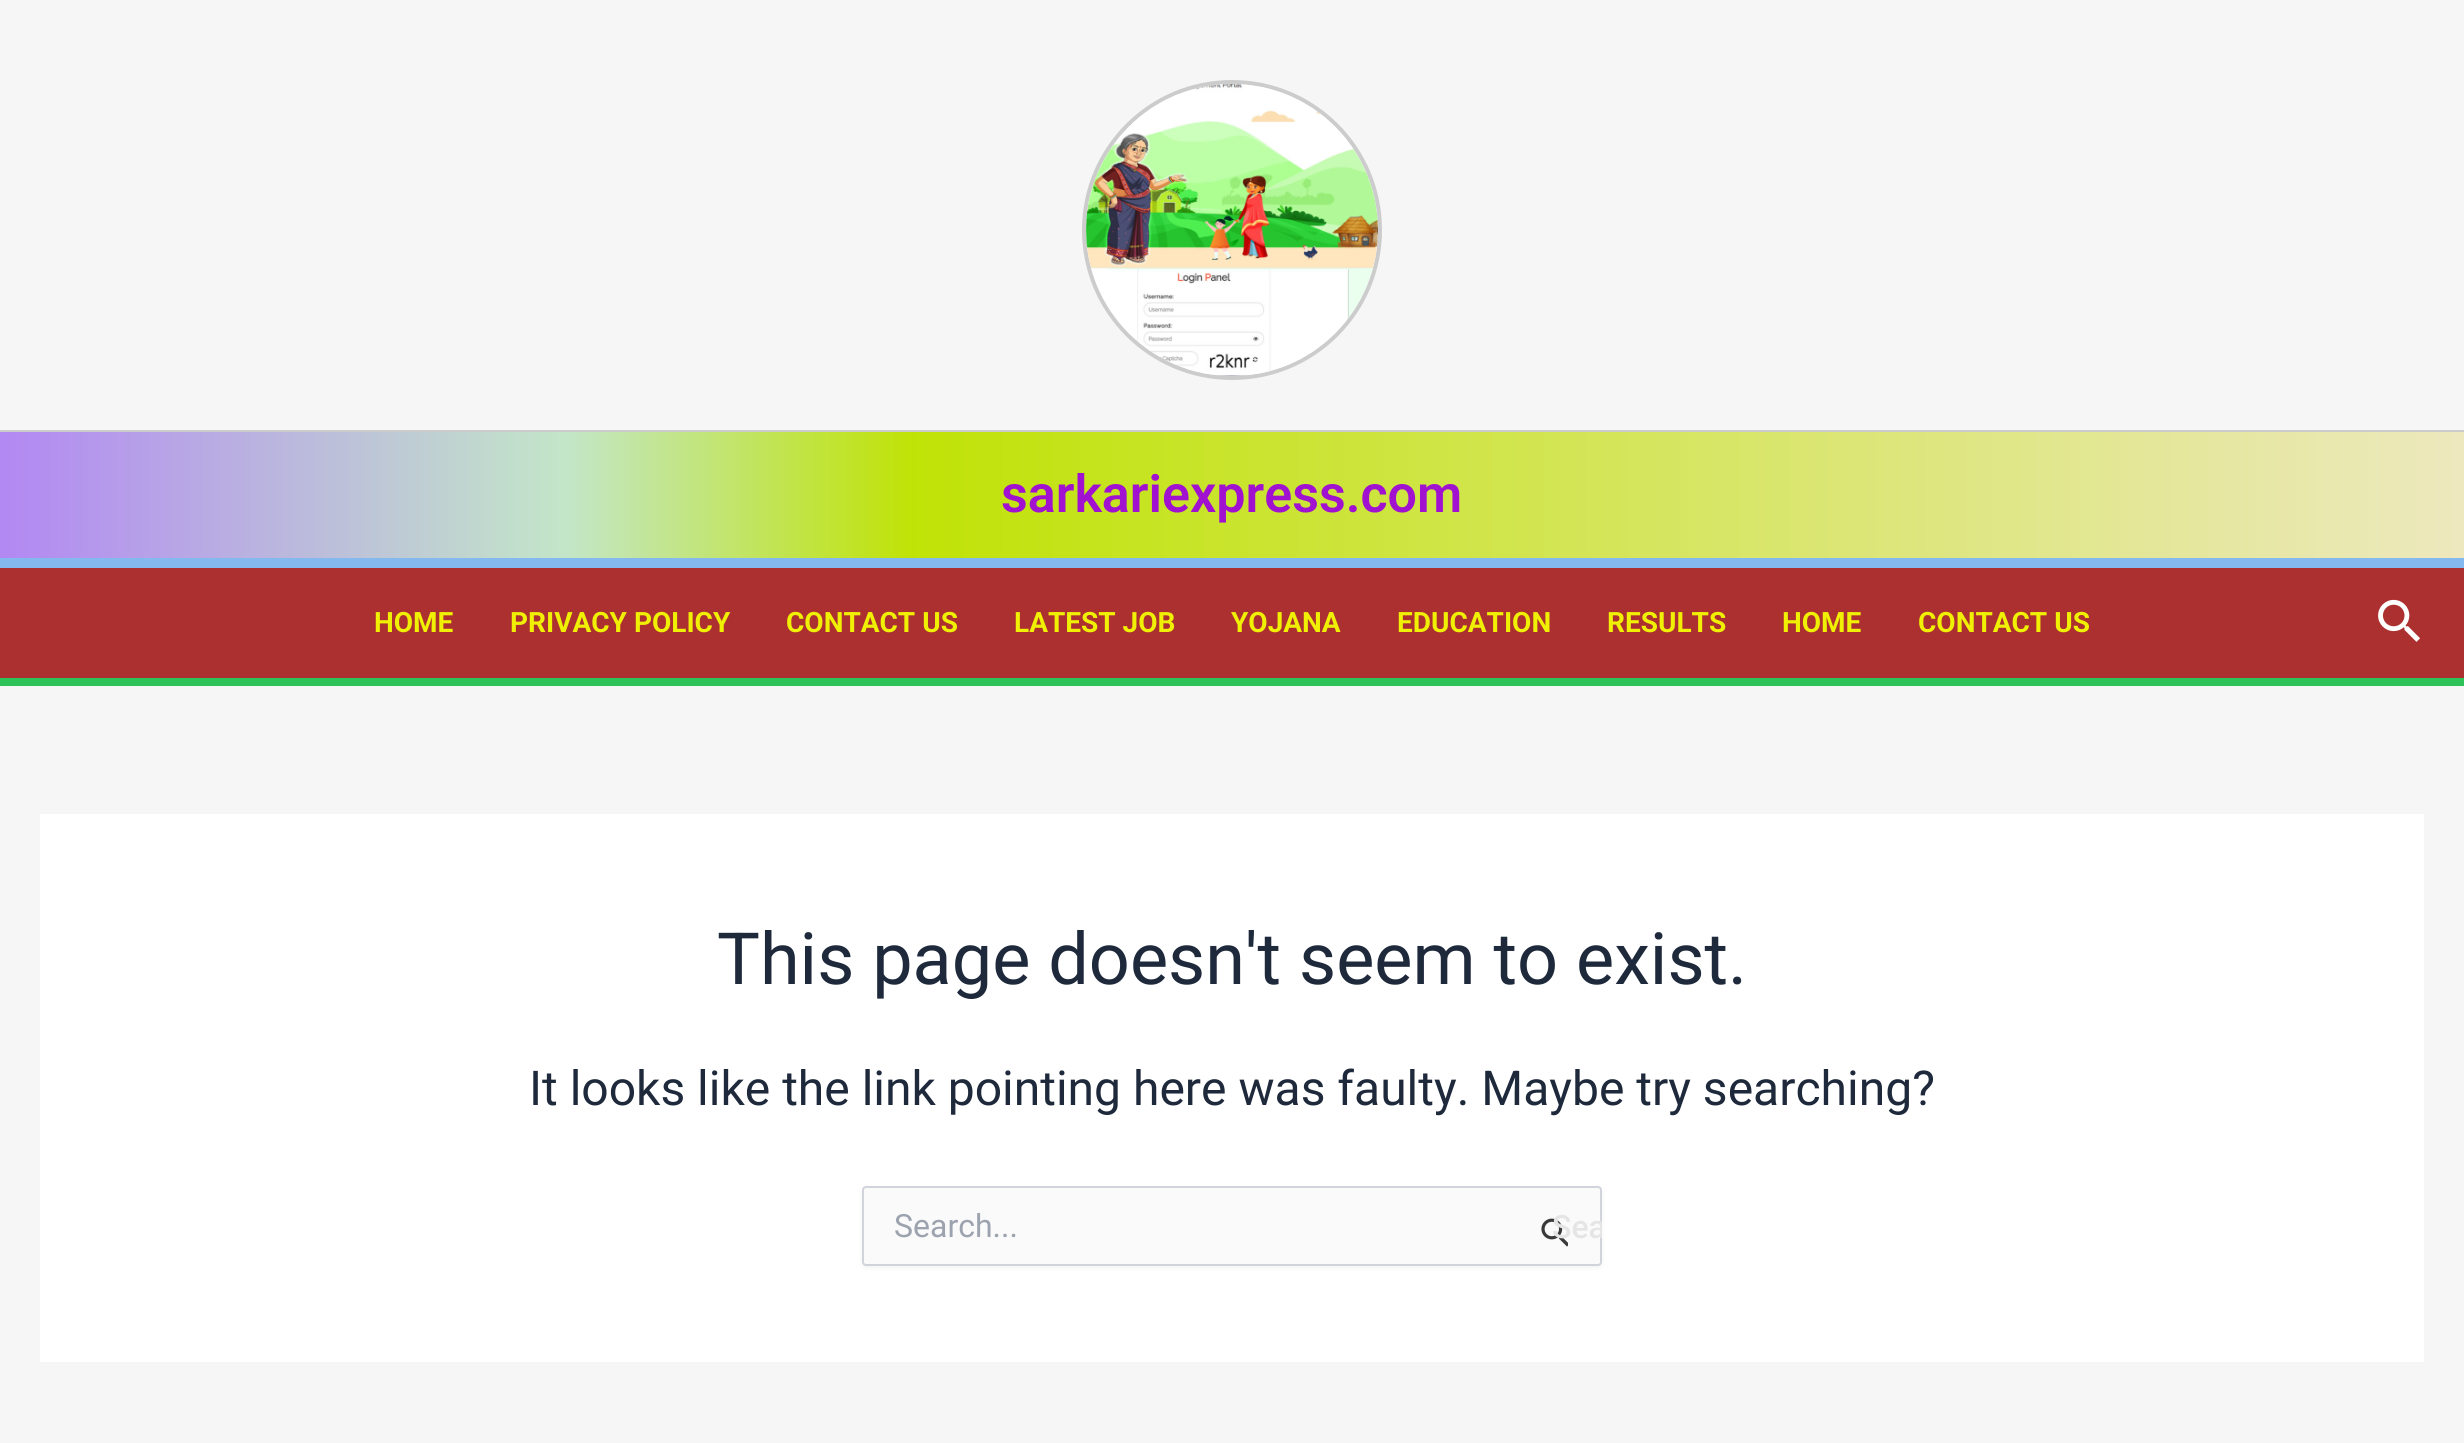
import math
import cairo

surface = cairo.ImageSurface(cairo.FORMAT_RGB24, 2464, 1443)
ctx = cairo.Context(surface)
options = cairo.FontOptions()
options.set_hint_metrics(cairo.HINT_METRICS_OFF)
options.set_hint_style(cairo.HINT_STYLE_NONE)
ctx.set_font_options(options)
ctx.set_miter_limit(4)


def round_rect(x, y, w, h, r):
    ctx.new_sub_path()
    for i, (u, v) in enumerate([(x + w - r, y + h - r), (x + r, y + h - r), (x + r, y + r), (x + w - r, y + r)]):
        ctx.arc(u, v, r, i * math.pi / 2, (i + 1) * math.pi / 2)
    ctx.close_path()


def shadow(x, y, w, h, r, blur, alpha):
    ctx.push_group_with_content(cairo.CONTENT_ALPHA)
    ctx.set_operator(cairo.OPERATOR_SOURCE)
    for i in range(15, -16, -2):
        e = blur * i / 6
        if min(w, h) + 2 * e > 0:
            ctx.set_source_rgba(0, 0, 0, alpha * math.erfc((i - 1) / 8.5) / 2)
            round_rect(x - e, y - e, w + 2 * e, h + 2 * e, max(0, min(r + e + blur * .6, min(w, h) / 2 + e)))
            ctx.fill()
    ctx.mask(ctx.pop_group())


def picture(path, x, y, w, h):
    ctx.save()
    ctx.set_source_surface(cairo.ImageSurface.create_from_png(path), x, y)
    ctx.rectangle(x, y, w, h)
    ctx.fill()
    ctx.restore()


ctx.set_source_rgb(0.961, 0.961, 0.961)
ctx.paint()
ctx.set_source_rgb(0.8, 0.8, 0.8)
ctx.rectangle(0, 430, 2464, 2)
ctx.fill()
ctx.arc(1232, 230, 148, 0, 2 * math.pi)
ctx.set_line_width(4)
ctx.stroke()
picture("img1.png", 1086, 84, 292, 292)
gradient = cairo.LinearGradient(0, 495, 2464, 495)
gradient.add_color_stop_rgba(0, 0.698, 0.533, 0.953, 1)
gradient.add_color_stop_rgba(0.23, 0.765, 0.902, 0.784, 1)
gradient.add_color_stop_rgba(0.37, 0.753, 0.89, 0.027, 1)
gradient.add_color_stop_rgba(1, 0.929, 0.91, 0.745, 1)
ctx.set_source(gradient)
ctx.rectangle(0, 432, 2464, 126)
ctx.fill()
ctx.set_source_rgb(0.514, 0.725, 0.933)
ctx.rectangle(0, 558, 2464, 10)
ctx.fill()
ctx.select_font_face("Roboto SemiBold")
ctx.set_font_size(52)
ctx.set_source_rgb(0.627, 0.071, 0.812)
ctx.move_to(1001, 512)
ctx.show_text("sarkariexpress.com")
ctx.set_source_rgb(0.678, 0.188, 0.188)
ctx.rectangle(0, 568, 2464, 110)
ctx.fill()
ctx.set_source_rgb(0.18, 0.765, 0.345)
ctx.rectangle(0, 678, 2464, 8)
ctx.fill()
ctx.select_font_face("Roboto", cairo.FONT_SLANT_NORMAL, cairo.FONT_WEIGHT_BOLD)
ctx.set_font_size(28)
ctx.set_source_rgb(0.937, 0.941, 0.012)
ctx.move_to(374, 632)
ctx.show_text("HOME")
ctx.move_to(510, 632)
ctx.show_text("PRIVACY POLICY")
ctx.move_to(786, 632)
ctx.show_text("CONTACT US")
ctx.move_to(1014, 632)
ctx.show_text("LATEST JOB")
ctx.move_to(1231, 632)
ctx.show_text("YOJANA")
ctx.move_to(1397, 632)
ctx.show_text("EDUCATION")
ctx.move_to(1607, 632)
ctx.show_text("RESULTS")
ctx.move_to(1782, 632)
ctx.show_text("HOME")
ctx.move_to(1918, 632)
ctx.show_text("CONTACT US")
picture("img2.png", 2378, 599, 42, 43)
ctx.set_source_rgb(1, 1, 1)
ctx.rectangle(40, 814, 2384, 548)
ctx.fill()
ctx.select_font_face("Roboto")
ctx.set_font_size(72)
ctx.set_source_rgb(0.118, 0.161, 0.231)
ctx.move_to(717, 984)
ctx.show_text("This page doesn't seem to exist.")
ctx.set_font_size(48)
ctx.move_to(529, 1105)
ctx.show_text("It looks like the link pointing here was faulty. Maybe try searching?")
ctx.set_source_rgb(0, 0, 0)
shadow(862, 1188, 740, 80, 4, 2, 0.05)
ctx.set_source_rgb(0.98, 0.98, 0.98)
round_rect(863, 1187, 738, 78, 3)
ctx.fill_preserve()
ctx.set_source_rgb(0.82, 0.835, 0.859)
ctx.set_line_width(2)
ctx.stroke()
ctx.set_font_size(32)
ctx.set_source_rgb(0.612, 0.639, 0.686)
ctx.move_to(894, 1237)
ctx.show_text("Search...")
picture("img3.png", 1541, 1218, 27, 29)
ctx.save()
round_rect(1512, 1186, 90, 84, 4)
ctx.clip()
ctx.select_font_face("Roboto Medium")
ctx.set_source_rgb(0.898, 0.898, 0.902)
ctx.move_to(1552, 1238)
ctx.show_text("Sea")
ctx.restore()
surface.write_to_png("page.png")
